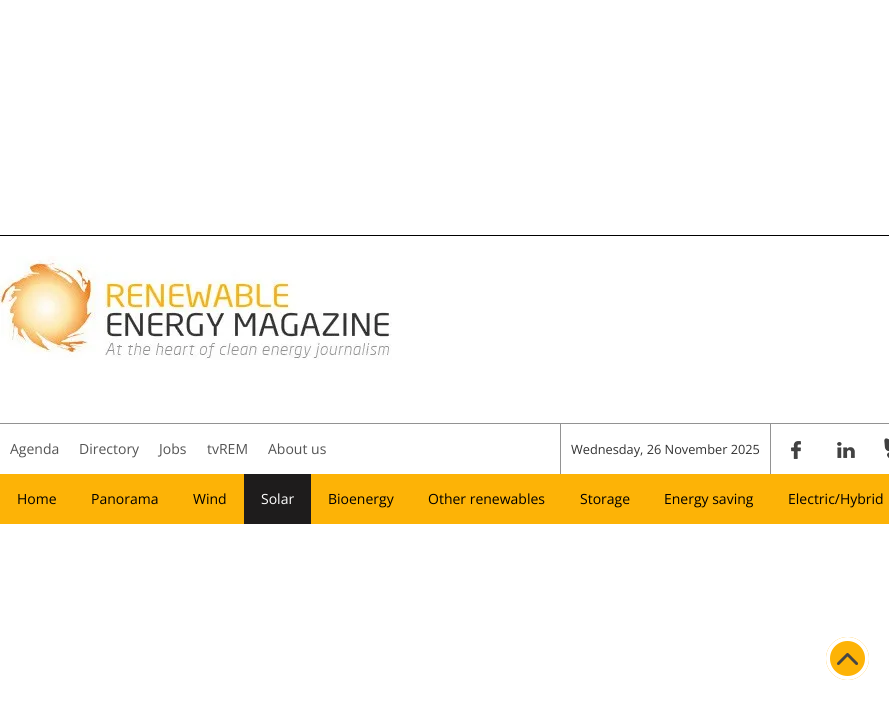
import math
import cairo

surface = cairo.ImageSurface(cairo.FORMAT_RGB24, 889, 709)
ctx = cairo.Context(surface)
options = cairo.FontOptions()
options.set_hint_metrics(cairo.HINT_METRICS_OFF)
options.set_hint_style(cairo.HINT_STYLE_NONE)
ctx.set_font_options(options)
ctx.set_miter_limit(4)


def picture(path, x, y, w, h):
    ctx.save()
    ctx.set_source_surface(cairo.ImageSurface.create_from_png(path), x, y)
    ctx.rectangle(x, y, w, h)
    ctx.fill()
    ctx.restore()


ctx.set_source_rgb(1, 1, 1)
ctx.paint()
ctx.set_source_rgb(0, 0, 0)
ctx.rectangle(0, 235, 889, 1)
ctx.fill()
picture("img1.png", 0, 256, 392, 104)
ctx.set_source_rgb(0.573, 0.573, 0.573)
ctx.rectangle(0, 423, 889, 1)
ctx.fill()
ctx.select_font_face("Open Sans")
ctx.set_font_size(14)
ctx.set_source_rgb(0.329, 0.329, 0.329)
ctx.move_to(10, 454)
ctx.show_text("Agenda")
ctx.move_to(79, 454)
ctx.show_text("Directory")
ctx.move_to(159, 454)
ctx.show_text("Jobs")
ctx.move_to(207, 454)
ctx.show_text("tvREM")
ctx.move_to(268, 454)
ctx.show_text("About us")
ctx.set_source_rgb(0.573, 0.573, 0.573)
ctx.rectangle(770, 424, 1, 50)
ctx.fill()
ctx.rectangle(560, 424, 1, 50)
ctx.fill()
ctx.set_font_size(12.75)
ctx.set_source_rgb(0.2, 0.2, 0.2)
ctx.move_to(571, 454)
ctx.show_text("Wednesday, 26 November 2025")
picture("img2.png", 791, 441, 10, 18)
picture("img3.png", 837, 442, 18, 16)
picture("img4.png", 884, 438, 5, 20)
ctx.set_source_rgb(0.992, 0.702, 0.024)
ctx.rectangle(0, 474, 889, 50)
ctx.fill()
ctx.set_font_size(14)
ctx.set_source_rgb(0, 0, 0)
ctx.move_to(17, 504)
ctx.show_text("Home")
ctx.move_to(91, 504)
ctx.show_text("Panorama")
ctx.move_to(193, 504)
ctx.show_text("Wind")
ctx.set_source_rgb(0.118, 0.11, 0.11)
ctx.rectangle(244, 474, 67, 50)
ctx.fill()
ctx.set_source_rgb(1, 1, 1)
ctx.move_to(261, 504)
ctx.show_text("Solar")
ctx.set_source_rgb(0, 0, 0)
ctx.move_to(328, 504)
ctx.show_text("Bioenergy")
ctx.move_to(428, 504)
ctx.show_text("Other renewables")
ctx.move_to(580, 504)
ctx.show_text("Storage")
ctx.move_to(664, 504)
ctx.show_text("Energy saving")
ctx.move_to(788, 504)
ctx.show_text("Electric/Hybrid")
ctx.set_source_rgb(0.992, 0.702, 0.024)
ctx.new_path()
ctx.arc(847.5, 658.5, 21.5, 0, 2 * math.pi)
ctx.fill()
picture("img5.png", 837, 653, 21, 12)
ctx.arc(847.5, 658.5, 19.5, 0, 2 * math.pi)
ctx.set_source_rgb(1, 1, 1)
ctx.set_line_width(4)
ctx.stroke()
surface.write_to_png("page.png")
